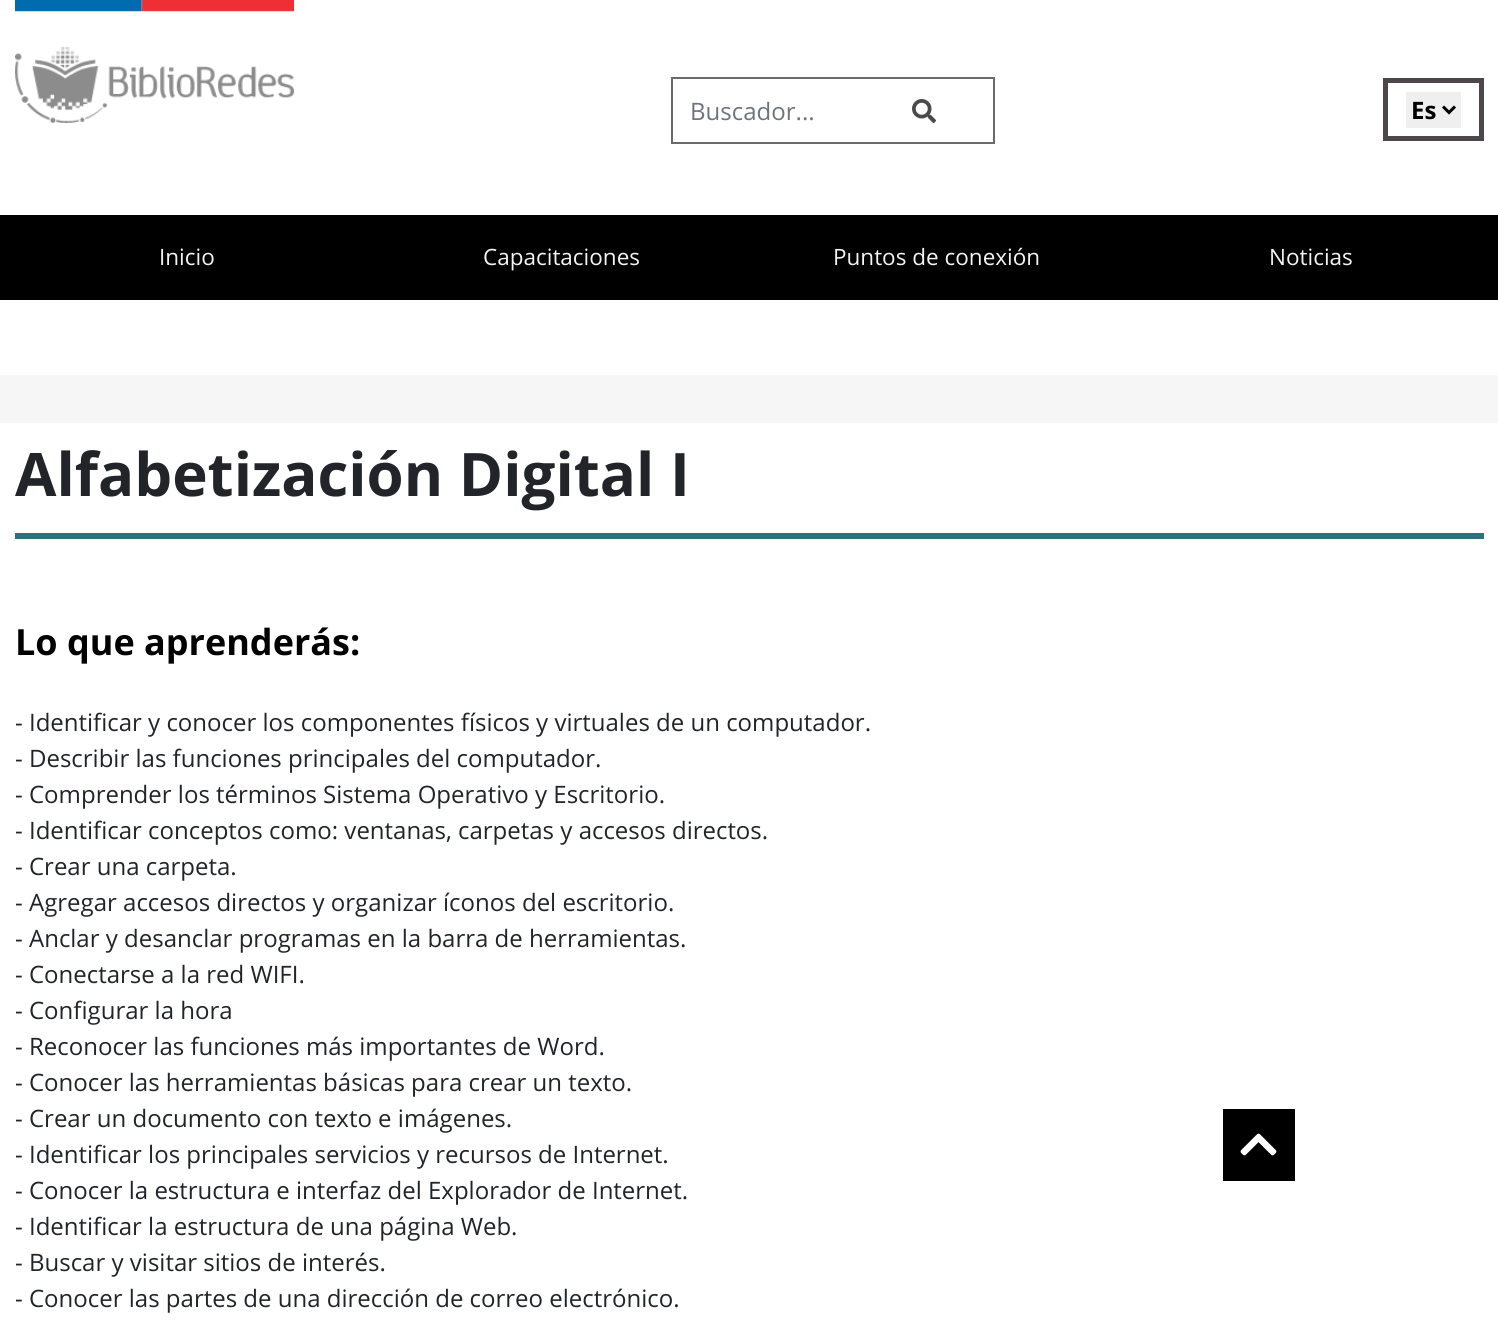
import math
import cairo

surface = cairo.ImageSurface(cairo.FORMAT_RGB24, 1498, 1330)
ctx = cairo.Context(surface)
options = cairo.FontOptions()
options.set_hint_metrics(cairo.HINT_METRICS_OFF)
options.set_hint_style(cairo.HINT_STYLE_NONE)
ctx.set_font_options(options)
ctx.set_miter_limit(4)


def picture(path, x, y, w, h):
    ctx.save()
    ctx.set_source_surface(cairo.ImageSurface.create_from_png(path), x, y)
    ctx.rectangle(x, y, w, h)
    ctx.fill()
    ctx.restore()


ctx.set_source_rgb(1, 1, 1)
ctx.paint()
picture("img1.png", 15, 0, 279, 123)
ctx.rectangle(672, 78, 322, 65)
ctx.set_source_rgb(0.416, 0.416, 0.416)
ctx.stroke()
ctx.select_font_face("Open Sans")
ctx.set_font_size(24)
ctx.set_source_rgb(0.424, 0.459, 0.49)
ctx.move_to(690, 120)
ctx.show_text("Buscador...")
picture("img2.png", 912, 99, 24, 24)
ctx.rectangle(1385.5, 80.5, 96, 58)
ctx.set_source_rgb(0.302, 0.275, 0.29)
ctx.set_line_width(5)
ctx.stroke()
ctx.set_source_rgb(0.937, 0.937, 0.937)
ctx.rectangle(1406, 92, 55, 36)
ctx.fill()
ctx.new_path()
ctx.move_to(1443, 106.5)
ctx.line_to(1449, 112.5)
ctx.line_to(1455, 106.5)
ctx.set_source_rgb(0, 0, 0)
ctx.set_line_width(3)
ctx.stroke()
ctx.select_font_face("Open Sans", cairo.FONT_SLANT_NORMAL, cairo.FONT_WEIGHT_BOLD)
ctx.move_to(1411, 119)
ctx.show_text("Es")
ctx.rectangle(0, 215, 1498, 85)
ctx.fill()
ctx.select_font_face("Open Sans")
ctx.set_font_size(22.5)
ctx.set_source_rgb(0.953, 0.953, 0.953)
ctx.move_to(159, 265)
ctx.show_text("Inicio")
ctx.move_to(483, 265)
ctx.show_text("Capacitaciones")
ctx.move_to(833, 265)
ctx.show_text("Puntos de conexión")
ctx.move_to(1269, 265)
ctx.show_text("Noticias")
ctx.set_source_rgb(0.961, 0.961, 0.961)
ctx.rectangle(0, 375, 1498, 48)
ctx.fill()
ctx.set_source_rgb(0.176, 0.443, 0.486)
ctx.rectangle(15, 533, 1469, 6)
ctx.fill()
ctx.select_font_face("Open Sans", cairo.FONT_SLANT_NORMAL, cairo.FONT_WEIGHT_BOLD)
ctx.set_font_size(60)
ctx.set_source_rgb(0.129, 0.145, 0.161)
ctx.move_to(15, 496)
ctx.show_text("Alfabetización Digital I")
ctx.set_font_size(36)
ctx.set_source_rgb(0, 0, 0)
ctx.move_to(15, 655)
ctx.show_text("Lo que aprenderás:")
ctx.select_font_face("Open Sans")
ctx.set_font_size(24)
ctx.set_source_rgb(0.129, 0.145, 0.161)
ctx.move_to(15, 731)
ctx.show_text("- Identificar y conocer los componentes físicos y virtuales de un computador.")
ctx.move_to(15, 767)
ctx.show_text("- Describir las funciones principales del computador.")
ctx.move_to(15, 803)
ctx.show_text("- Comprender los términos Sistema Operativo y Escritorio.")
ctx.move_to(15, 839)
ctx.show_text("- Identificar conceptos como: ventanas, carpetas y accesos directos.")
ctx.move_to(15, 875)
ctx.show_text("- Crear una carpeta.")
ctx.move_to(15, 911)
ctx.show_text("- Agregar accesos directos y organizar íconos del escritorio.")
ctx.move_to(15, 947)
ctx.show_text("- Anclar y desanclar programas en la barra de herramientas.")
ctx.move_to(15, 983)
ctx.show_text("- Conectarse a la red WIFI.")
ctx.move_to(15, 1019)
ctx.show_text("- Configurar la hora")
ctx.move_to(15, 1055)
ctx.show_text("- Reconocer las funciones más importantes de Word.")
ctx.move_to(15, 1091)
ctx.show_text("- Conocer las herramientas básicas para crear un texto.")
ctx.move_to(15, 1127)
ctx.show_text("- Crear un documento con texto e imágenes.")
ctx.move_to(15, 1163)
ctx.show_text("- Identificar los principales servicios y recursos de Internet.")
ctx.move_to(15, 1199)
ctx.show_text("- Conocer la estructura e interfaz del Explorador de Internet.")
ctx.move_to(15, 1235)
ctx.show_text("- Identificar la estructura de una página Web.")
ctx.move_to(15, 1271)
ctx.show_text("- Buscar y visitar sitios de interés.")
ctx.move_to(15, 1307)
ctx.show_text("- Conocer las partes de una dirección de correo electrónico.")
ctx.set_source_rgb(0, 0, 0)
ctx.rectangle(1223, 1109, 72, 72)
ctx.fill()
picture("img3.png", 1240, 1133, 37, 23)
surface.write_to_png("page.png")
